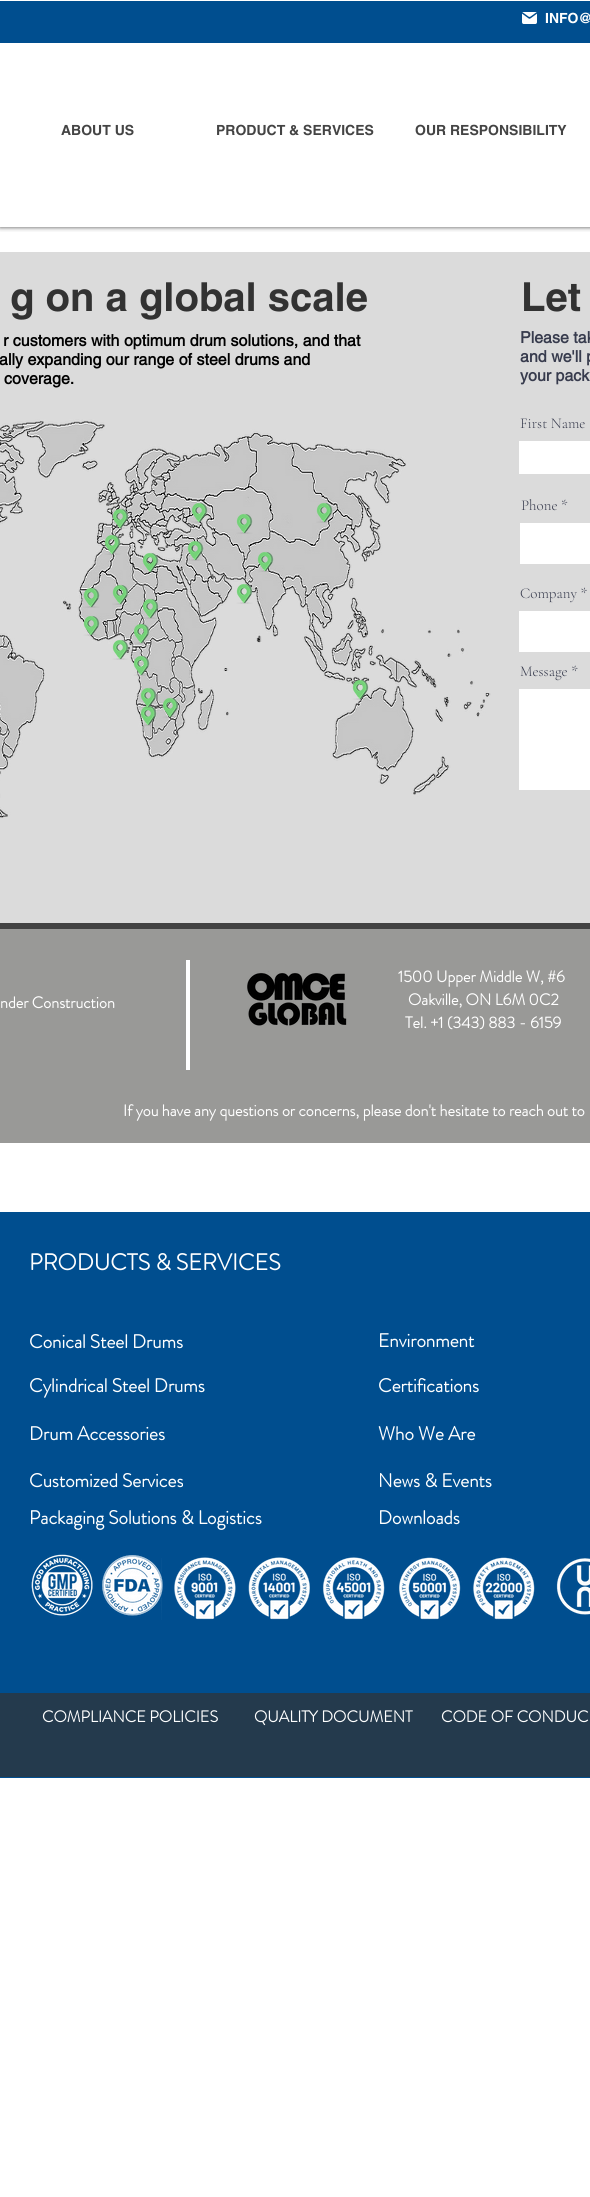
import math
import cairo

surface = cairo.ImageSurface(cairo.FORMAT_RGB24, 590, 2197)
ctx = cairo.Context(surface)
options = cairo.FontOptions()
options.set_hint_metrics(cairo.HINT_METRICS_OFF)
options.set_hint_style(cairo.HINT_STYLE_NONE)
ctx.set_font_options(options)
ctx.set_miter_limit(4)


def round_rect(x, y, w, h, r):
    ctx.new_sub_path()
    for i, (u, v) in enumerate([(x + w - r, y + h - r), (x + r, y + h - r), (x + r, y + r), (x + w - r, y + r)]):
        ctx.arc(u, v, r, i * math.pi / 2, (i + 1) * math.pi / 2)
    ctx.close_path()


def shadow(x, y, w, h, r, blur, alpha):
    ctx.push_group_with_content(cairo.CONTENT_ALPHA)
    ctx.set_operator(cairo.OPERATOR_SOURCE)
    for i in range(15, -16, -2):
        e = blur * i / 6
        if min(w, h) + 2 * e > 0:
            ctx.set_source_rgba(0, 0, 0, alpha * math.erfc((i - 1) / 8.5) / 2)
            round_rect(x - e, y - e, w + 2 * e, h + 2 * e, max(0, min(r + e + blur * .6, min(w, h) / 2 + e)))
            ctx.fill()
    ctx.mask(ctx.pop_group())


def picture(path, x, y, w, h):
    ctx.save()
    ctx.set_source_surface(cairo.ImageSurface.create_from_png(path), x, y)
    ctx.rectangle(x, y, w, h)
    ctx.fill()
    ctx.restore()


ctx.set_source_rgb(1, 1, 1)
ctx.paint()
ctx.save()
ctx.rectangle(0, 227, 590, 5)
ctx.clip()
ctx.set_source_rgb(0, 0, 0)
shadow(0, 0, 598, 227, 0, 2.5, 0.7)
ctx.restore()
ctx.set_source_rgb(0, 0.306, 0.561)
ctx.rectangle(0, 1, 590, 42)
ctx.fill()
picture("img1.png", 522, 12, 15, 12)
ctx.select_font_face("helvetica", cairo.FONT_SLANT_NORMAL, cairo.FONT_WEIGHT_BOLD)
ctx.set_font_size(14)
ctx.set_source_rgb(1, 1, 1)
ctx.move_to(545, 23)
ctx.show_text("INFO@")
ctx.set_source_rgb(0.267, 0.267, 0.267)
ctx.move_to(61, 135)
ctx.show_text("ABOUT US")
ctx.move_to(216, 135)
ctx.show_text("PRODUCT & SERVICES")
ctx.move_to(415, 135)
ctx.show_text("OUR RESPONSIBILITY")
ctx.set_source_rgb(0.859, 0.859, 0.859)
ctx.rectangle(0, 252, 590, 671)
ctx.fill()
ctx.set_font_size(40)
ctx.set_source_rgb(0.196, 0.196, 0.196)
ctx.move_to(10, 311)
ctx.show_text("g on a global scale")
ctx.move_to(521, 311)
ctx.show_text("Let")
ctx.select_font_face("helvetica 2", cairo.FONT_SLANT_NORMAL, cairo.FONT_WEIGHT_BOLD)
ctx.set_font_size(16)
ctx.set_source_rgb(0, 0, 0)
ctx.move_to(3, 346)
ctx.show_text("r customers with optimum drum solutions, and that")
ctx.move_to(-1, 365)
ctx.show_text("ally expanding our range of steel drums and")
ctx.move_to(4, 384)
ctx.show_text("coverage.")
ctx.set_source_rgb(0.216, 0.231, 0.302)
ctx.move_to(520, 343)
ctx.show_text("Please tak")
ctx.move_to(520, 362)
ctx.show_text("and we'll p")
ctx.move_to(520, 381)
ctx.show_text("your pack")
picture("img2.png", 0, 419, 491, 399)
ctx.select_font_face("Cormorant Garamond Light")
ctx.set_font_size(15)
ctx.move_to(520, 428)
ctx.show_text("First Name")
ctx.set_source_rgb(1, 1, 1)
ctx.rectangle(519, 441, 71, 33)
ctx.fill()
picture("img3.png", 112, 508, 17, 21)
picture("img4.png", 191, 502, 17, 21)
picture("img5.png", 236, 513, 17, 21)
picture("img6.png", 316, 502, 17, 21)
ctx.set_source_rgb(0.216, 0.231, 0.302)
ctx.move_to(521, 510)
ctx.show_text("Phone *")
ctx.set_source_rgb(1, 1, 1)
ctx.rectangle(520, 523, 70, 41)
ctx.fill()
picture("img7.png", 104, 535, 17, 20)
picture("img8.png", 142, 552, 17, 21)
picture("img9.png", 187, 540, 17, 21)
picture("img10.png", 257, 551, 17, 21)
picture("img11.png", 83, 588, 17, 20)
picture("img12.png", 112, 584, 17, 21)
picture("img13.png", 142, 598, 17, 21)
picture("img14.png", 236, 583, 17, 21)
ctx.set_source_rgb(0.216, 0.231, 0.302)
ctx.move_to(520, 598)
ctx.show_text("Company *")
ctx.set_source_rgb(1, 1, 1)
ctx.rectangle(519, 611, 71, 41)
ctx.fill()
picture("img15.png", 83, 615, 17, 21)
picture("img16.png", 133, 623, 17, 21)
picture("img17.png", 112, 639, 17, 21)
picture("img18.png", 133, 656, 17, 20)
ctx.set_source_rgb(0.216, 0.231, 0.302)
ctx.move_to(520, 676)
ctx.show_text("Message *")
ctx.set_source_rgb(1, 1, 1)
ctx.rectangle(519, 689, 71, 101)
ctx.fill()
picture("img22.png", 140, 706, 17, 20)
picture("img19.png", 140, 687, 16, 21)
picture("img20.png", 162, 697, 17, 21)
picture("img21.png", 352, 679, 17, 21)
ctx.set_source_rgb(0.259, 0.259, 0.259)
ctx.rectangle(0, 923, 590, 6)
ctx.fill()
ctx.set_source_rgb(0.6, 0.6, 0.592)
ctx.rectangle(0, 929, 590, 214)
ctx.fill()
ctx.select_font_face("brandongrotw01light", cairo.FONT_SLANT_NORMAL, cairo.FONT_WEIGHT_BOLD)
ctx.set_font_size(16)
ctx.set_source_rgb(1, 1, 1)
ctx.move_to(0, 1008)
ctx.show_text("nder Construction")
ctx.rectangle(186, 960, 4, 110)
ctx.fill()
picture("img23.png", 247, 971, 100, 55)
ctx.move_to(398, 982)
ctx.show_text("1500 Upper Middle W, #6")
ctx.move_to(408, 1005)
ctx.show_text("Oakville, ON L6M 0C2")
ctx.move_to(405, 1028)
ctx.show_text("Tel. +1 (343) 883 - 6159")
ctx.move_to(123, 1116)
ctx.show_text("If you have any questions or concerns, please don't hesitate to reach out to")
ctx.set_source_rgb(0, 0.306, 0.561)
ctx.rectangle(0, 1212, 590, 566)
ctx.fill()
ctx.set_font_size(23)
ctx.set_source_rgb(1, 1, 1)
ctx.move_to(29, 1270)
ctx.show_text("PRODUCTS & SERVICES")
ctx.set_font_size(19)
ctx.move_to(29, 1348)
ctx.show_text("Conical Steel Drums")
ctx.move_to(378, 1347)
ctx.show_text("Environment")
ctx.move_to(29, 1392)
ctx.show_text("Cylindrical Steel Drums")
ctx.move_to(378, 1392)
ctx.show_text("Certifications")
ctx.move_to(29, 1440)
ctx.show_text("Drum Accessories")
ctx.move_to(378, 1440)
ctx.show_text("Who We Are")
ctx.move_to(29, 1487)
ctx.show_text("Customized Services")
ctx.move_to(378, 1487)
ctx.show_text("News & Events")
ctx.move_to(29, 1524)
ctx.show_text("Packaging Solutions & Logistics")
ctx.move_to(378, 1524)
ctx.show_text("Downloads")
picture("img24.png", 31, 1554, 504, 66)
picture("img25.png", 556, 1558, 34, 57)
ctx.set_source_rgb(0.141, 0.227, 0.302)
ctx.rectangle(0, 1693, 590, 84)
ctx.fill()
ctx.set_font_size(16)
ctx.set_source_rgb(1, 1, 1)
ctx.move_to(42, 1722)
ctx.show_text("COMPLIANCE POLICIES")
ctx.move_to(254, 1722)
ctx.show_text("QUALITY DOCUMENT")
ctx.move_to(441, 1722)
ctx.show_text("CODE OF CONDUC")
surface.write_to_png("page.png")
